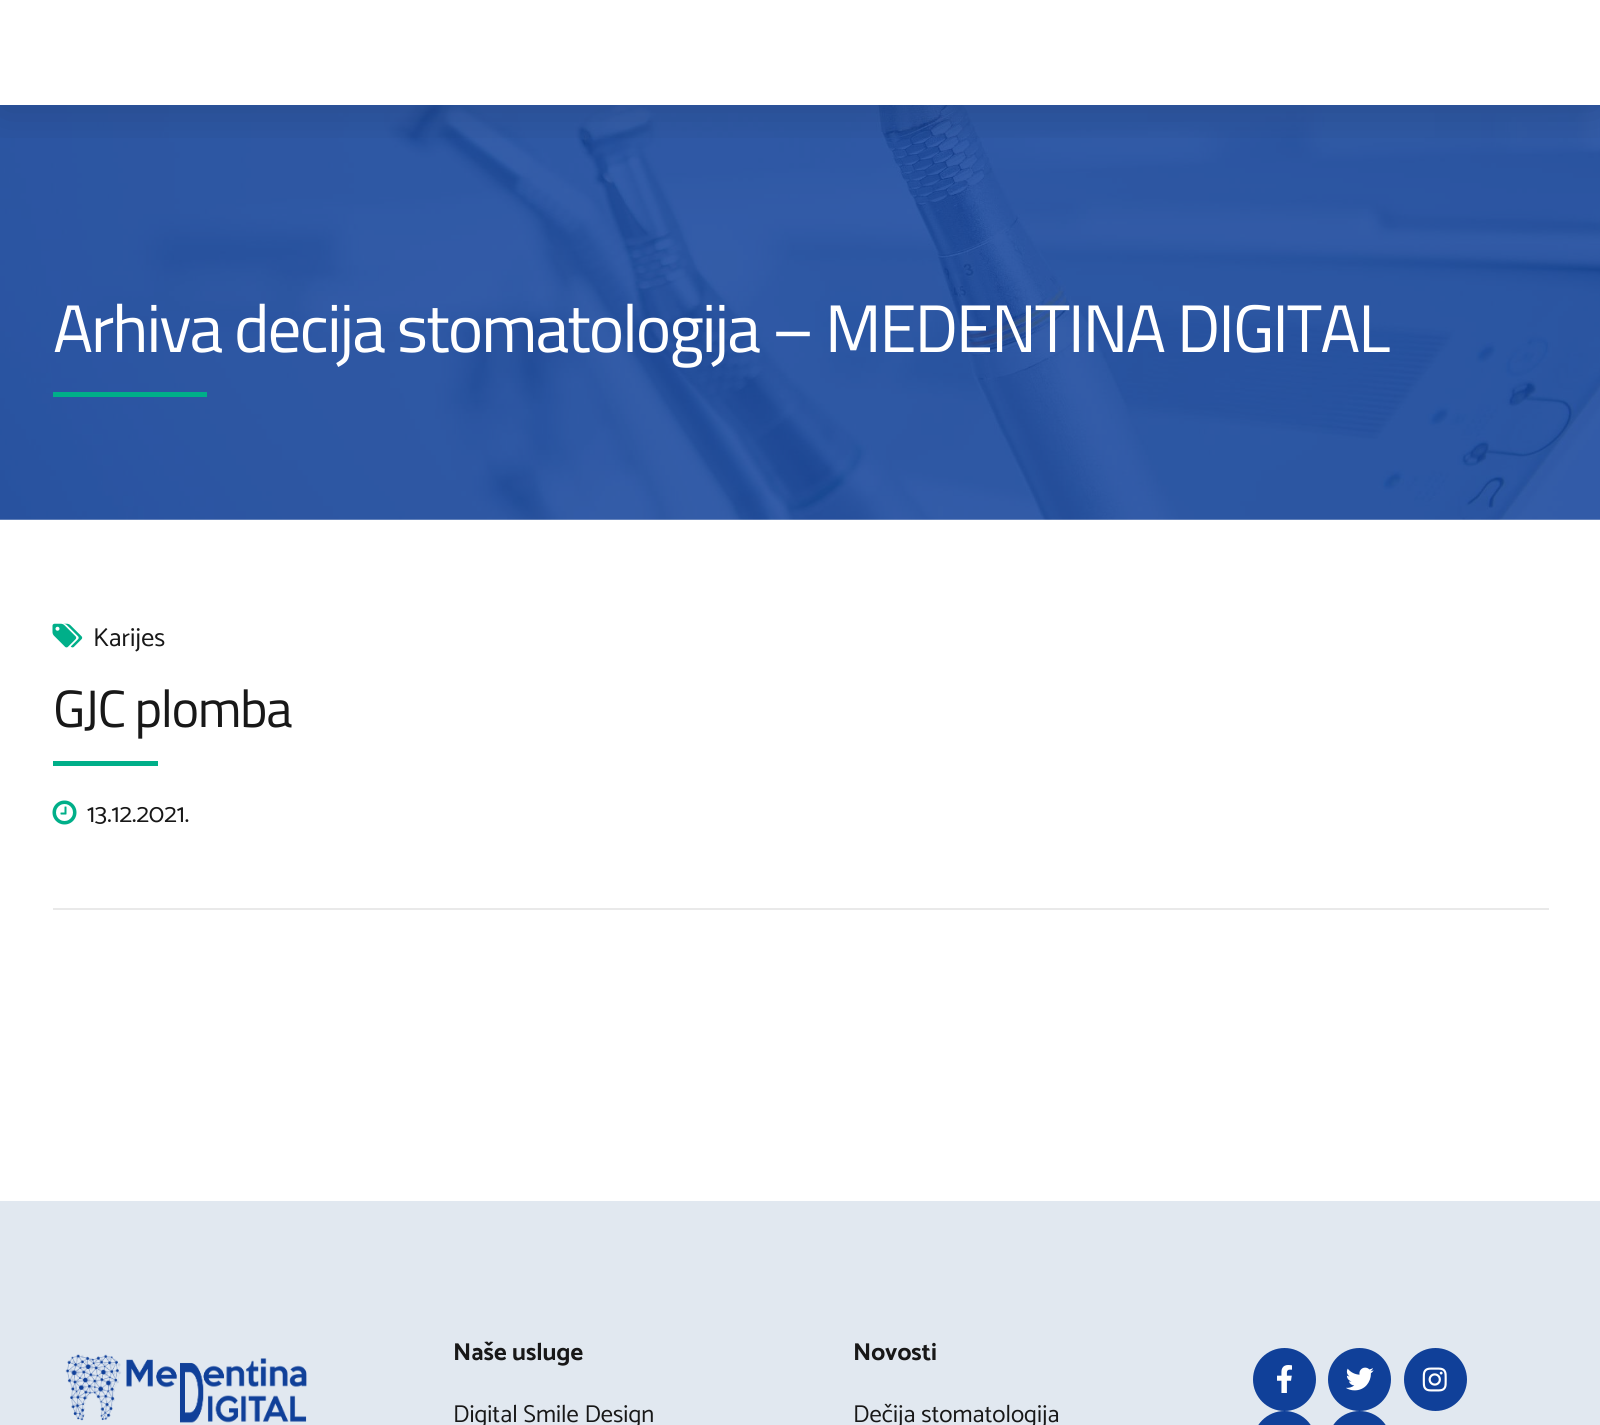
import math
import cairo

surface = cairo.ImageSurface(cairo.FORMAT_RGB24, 1600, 1425)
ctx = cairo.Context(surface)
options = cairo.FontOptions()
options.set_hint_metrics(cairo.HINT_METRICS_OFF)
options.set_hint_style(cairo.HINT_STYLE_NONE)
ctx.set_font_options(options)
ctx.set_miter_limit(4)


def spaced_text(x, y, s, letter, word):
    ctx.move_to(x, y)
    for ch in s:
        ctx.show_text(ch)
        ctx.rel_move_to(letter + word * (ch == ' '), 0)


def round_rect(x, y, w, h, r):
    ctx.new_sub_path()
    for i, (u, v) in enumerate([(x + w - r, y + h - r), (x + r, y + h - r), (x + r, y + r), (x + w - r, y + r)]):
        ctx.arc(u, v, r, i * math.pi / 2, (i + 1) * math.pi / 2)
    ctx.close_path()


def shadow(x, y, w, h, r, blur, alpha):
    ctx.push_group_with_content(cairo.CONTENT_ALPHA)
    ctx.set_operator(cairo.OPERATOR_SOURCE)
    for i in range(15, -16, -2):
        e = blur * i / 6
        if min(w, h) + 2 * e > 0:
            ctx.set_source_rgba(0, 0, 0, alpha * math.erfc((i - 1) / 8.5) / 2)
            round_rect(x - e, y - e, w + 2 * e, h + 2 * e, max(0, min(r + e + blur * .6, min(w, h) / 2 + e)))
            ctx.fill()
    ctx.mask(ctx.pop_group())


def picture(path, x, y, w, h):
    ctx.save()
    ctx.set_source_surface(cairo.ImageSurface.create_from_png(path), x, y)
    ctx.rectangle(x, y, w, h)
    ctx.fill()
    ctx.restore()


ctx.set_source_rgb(1, 1, 1)
ctx.paint()
picture("img1.png", 0, 105, 1600, 415)
ctx.save()
ctx.rectangle(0, 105, 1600, 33)
ctx.clip()
ctx.set_source_rgb(0, 0, 0)
shadow(0, 4, 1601, 105, 0, 26, 0.15)
ctx.restore()
ctx.select_font_face("Titillium Web")
ctx.set_font_size(67.25)
ctx.set_source_rgb(1, 1, 1)
spaced_text(53, 352, "Arhiva decija stomatologija – MEDENTINA DIGITAL", -2, 0)
ctx.set_source_rgb(0, 0.686, 0.537)
ctx.rectangle(53, 392, 154, 5)
ctx.fill()
ctx.set_source_rgb(0.914, 0.914, 0.914)
ctx.rectangle(53, 908, 1496, 2)
ctx.fill()
picture("img2.png", 52, 623, 31, 25)
ctx.select_font_face("Catamaran")
ctx.set_font_size(26)
ctx.set_source_rgb(0.094, 0.094, 0.094)
ctx.move_to(93, 646)
ctx.show_text("Karijes")
ctx.select_font_face("Titillium Web")
ctx.set_font_size(52.5)
spaced_text(53, 727, "GJC plomba", -1.5, 0)
ctx.set_source_rgb(0, 0.686, 0.537)
ctx.rectangle(53, 761, 105, 5)
ctx.fill()
picture("img3.png", 52, 800, 25, 25)
ctx.select_font_face("Catamaran")
ctx.set_font_size(26)
ctx.set_source_rgb(0.094, 0.094, 0.094)
ctx.move_to(87, 822)
ctx.show_text("13.12.2021.")
ctx.set_source_rgb(0.882, 0.91, 0.941)
ctx.rectangle(0, 1201, 1600, 224)
ctx.fill()
picture("img4.png", 65, 1354, 242, 69)
ctx.select_font_face("Catamaran", cairo.FONT_SLANT_NORMAL, cairo.FONT_WEIGHT_BOLD)
ctx.set_font_size(24.5)
ctx.set_source_rgb(0.094, 0.094, 0.094)
ctx.move_to(453, 1360)
ctx.show_text("Naše usluge")
ctx.select_font_face("Catamaran")
ctx.move_to(453, 1422)
ctx.show_text("Digital Smile Design")
ctx.select_font_face("Catamaran", cairo.FONT_SLANT_NORMAL, cairo.FONT_WEIGHT_BOLD)
ctx.move_to(853, 1360)
ctx.show_text("Novosti")
ctx.select_font_face("Catamaran")
ctx.move_to(853, 1422)
ctx.show_text("Dečija stomatologija")
ctx.set_source_rgb(0.063, 0.251, 0.6)
ctx.new_path()
ctx.arc(1284.5, 1379.5, 31.5, 0, 2 * math.pi)
ctx.fill()
picture("img5.png", 1277, 1365, 15, 28)
ctx.arc(1359.5, 1379.5, 31.5, 0, 2 * math.pi)
ctx.fill()
picture("img6.png", 1346, 1367, 28, 24)
ctx.arc(1435.5, 1379.5, 31.5, 0, 2 * math.pi)
ctx.fill()
picture("img7.png", 1422, 1367, 25, 25)
round_rect(1253, 1411, 63, 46, 31.5)
ctx.fill()
round_rect(1328, 1411, 63, 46, 31.5)
ctx.fill()
surface.write_to_png("page.png")
